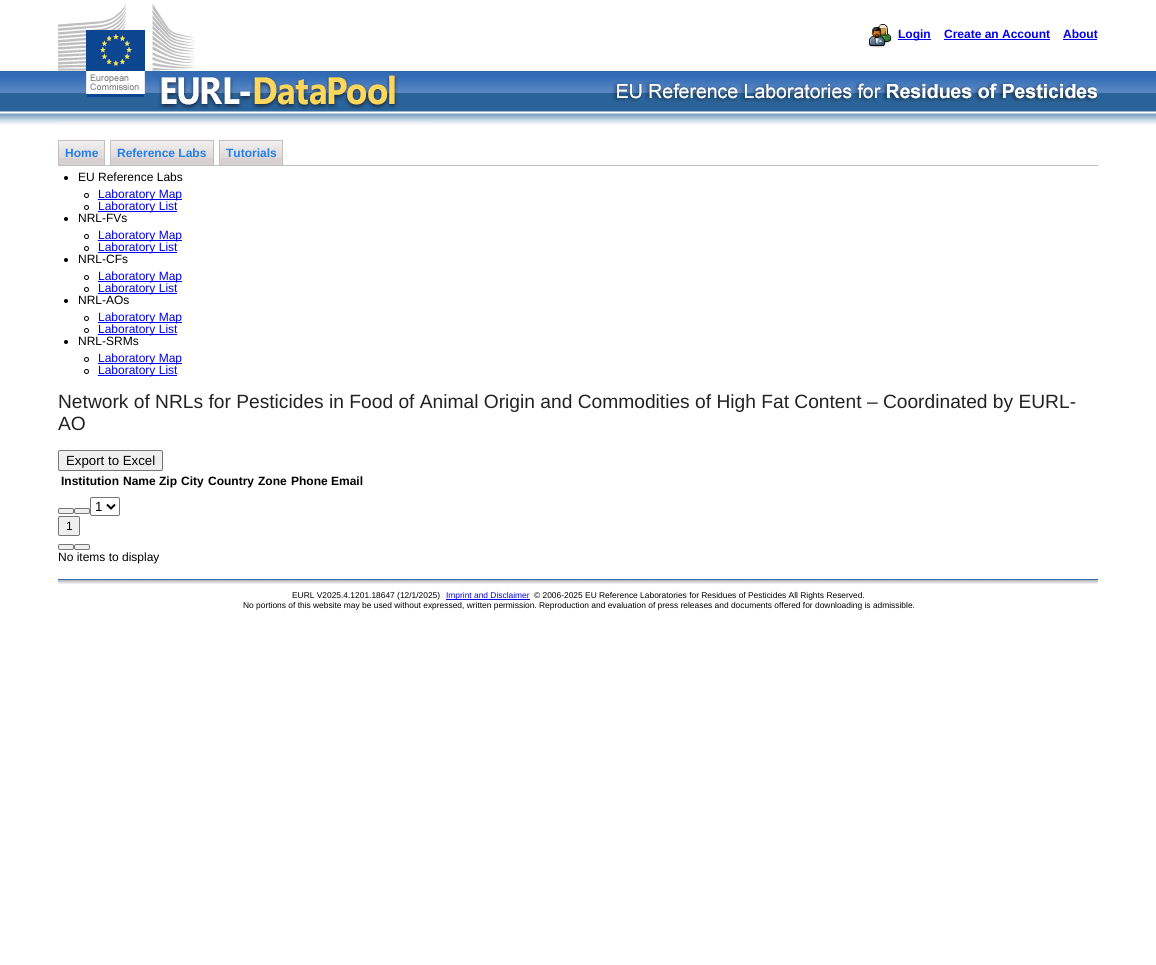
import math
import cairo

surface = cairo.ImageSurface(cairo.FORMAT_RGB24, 1156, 965)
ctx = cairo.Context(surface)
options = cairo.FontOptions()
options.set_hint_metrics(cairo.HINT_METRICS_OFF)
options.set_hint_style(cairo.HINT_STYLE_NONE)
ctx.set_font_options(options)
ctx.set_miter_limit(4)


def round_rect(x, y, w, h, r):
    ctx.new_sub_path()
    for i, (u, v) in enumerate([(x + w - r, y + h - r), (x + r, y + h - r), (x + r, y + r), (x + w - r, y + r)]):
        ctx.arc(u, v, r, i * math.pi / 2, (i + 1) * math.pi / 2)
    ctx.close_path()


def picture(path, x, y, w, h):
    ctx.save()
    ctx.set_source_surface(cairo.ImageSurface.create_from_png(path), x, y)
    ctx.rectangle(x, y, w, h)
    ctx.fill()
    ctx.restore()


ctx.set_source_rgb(1, 1, 1)
ctx.paint()
picture("img1.png", 0, 65, 1156, 60)
picture("img2.png", 58, 4, 368, 122)
picture("img3.png", 612, 82, 485, 20)
picture("img4.png", 868, 24, 24, 24)
ctx.set_source_rgb(0, 0, 0.933)
ctx.rectangle(898, 39, 33, 1)
ctx.fill()
ctx.select_font_face("Liberation Sans", cairo.FONT_SLANT_NORMAL, cairo.FONT_WEIGHT_BOLD)
ctx.set_font_size(12)
ctx.move_to(898, 38)
ctx.show_text("Login")
ctx.move_to(944, 38)
ctx.show_text("Create an Account")
ctx.rectangle(944, 39, 106, 1)
ctx.fill()
ctx.move_to(1063, 38)
ctx.show_text("About")
ctx.rectangle(1063, 39, 34, 1)
ctx.fill()
ctx.set_source_rgb(0.753, 0.753, 0.753)
ctx.rectangle(58, 165, 1040, 1)
ctx.fill()
ctx.set_source_rgb(0.851, 0.816, 0.82)
ctx.rectangle(59, 158, 45, 7)
ctx.fill()
picture("img5.png", 59, 141, 45, 17)
ctx.set_source_rgb(0.753, 0.753, 0.753)
ctx.rectangle(58, 140, 47, 1)
ctx.fill()
ctx.rectangle(104, 140, 1, 25)
ctx.fill()
ctx.rectangle(58, 140, 1, 25)
ctx.fill()
ctx.set_source_rgb(0.133, 0.494, 0.914)
ctx.move_to(65, 157)
ctx.show_text("Home")
ctx.set_source_rgb(0.851, 0.816, 0.82)
ctx.rectangle(111, 158, 102, 7)
ctx.fill()
picture("img6.png", 111, 141, 102, 17)
ctx.set_source_rgb(0.753, 0.753, 0.753)
ctx.rectangle(110, 140, 104, 1)
ctx.fill()
ctx.rectangle(213, 140, 1, 25)
ctx.fill()
ctx.rectangle(110, 140, 1, 25)
ctx.fill()
ctx.set_source_rgb(0.133, 0.494, 0.914)
ctx.move_to(117, 157)
ctx.show_text("Reference Labs")
ctx.set_source_rgb(0.851, 0.816, 0.82)
ctx.rectangle(220, 158, 62, 7)
ctx.fill()
picture("img7.png", 220, 141, 62, 17)
ctx.set_source_rgb(0.753, 0.753, 0.753)
ctx.rectangle(219, 140, 64, 1)
ctx.fill()
ctx.rectangle(282, 140, 1, 25)
ctx.fill()
ctx.rectangle(219, 140, 1, 25)
ctx.fill()
ctx.set_source_rgb(0.133, 0.494, 0.914)
ctx.move_to(226, 157)
ctx.show_text("Tutorials")
ctx.set_source_rgb(0, 0, 0)
ctx.new_path()
ctx.arc(66, 178, 2, 0, 2 * math.pi)
ctx.fill()
ctx.select_font_face("Liberation Sans")
ctx.move_to(78, 181)
ctx.show_text("EU Reference Labs")
ctx.new_path()
ctx.arc(86.5, 195.5, 2, 0, 2 * math.pi)
ctx.set_line_width(1)
ctx.stroke()
ctx.set_source_rgb(0, 0, 0.933)
ctx.rectangle(98, 199, 84, 1)
ctx.fill()
ctx.move_to(98, 198)
ctx.show_text("Laboratory Map")
ctx.new_path()
ctx.arc(86.5, 207.5, 2, 0, 2 * math.pi)
ctx.set_source_rgb(0, 0, 0)
ctx.stroke()
ctx.set_source_rgb(0, 0, 0.933)
ctx.rectangle(98, 211, 79, 1)
ctx.fill()
ctx.move_to(98, 210)
ctx.show_text("Laboratory List")
ctx.set_source_rgb(0, 0, 0)
ctx.new_path()
ctx.arc(66, 219, 2, 0, 2 * math.pi)
ctx.fill()
ctx.move_to(78, 222)
ctx.show_text("NRL-FVs")
ctx.new_path()
ctx.arc(86.5, 236.5, 2, 0, 2 * math.pi)
ctx.stroke()
ctx.set_source_rgb(0, 0, 0.933)
ctx.rectangle(98, 240, 84, 1)
ctx.fill()
ctx.move_to(98, 239)
ctx.show_text("Laboratory Map")
ctx.new_path()
ctx.arc(86.5, 248.5, 2, 0, 2 * math.pi)
ctx.set_source_rgb(0, 0, 0)
ctx.stroke()
ctx.set_source_rgb(0, 0, 0.933)
ctx.rectangle(98, 252, 79, 1)
ctx.fill()
ctx.move_to(98, 251)
ctx.show_text("Laboratory List")
ctx.set_source_rgb(0, 0, 0)
ctx.new_path()
ctx.arc(66, 260, 2, 0, 2 * math.pi)
ctx.fill()
ctx.move_to(78, 263)
ctx.show_text("NRL-CFs")
ctx.new_path()
ctx.arc(86.5, 277.5, 2, 0, 2 * math.pi)
ctx.stroke()
ctx.set_source_rgb(0, 0, 0.933)
ctx.rectangle(98, 281, 84, 1)
ctx.fill()
ctx.move_to(98, 280)
ctx.show_text("Laboratory Map")
ctx.new_path()
ctx.arc(86.5, 289.5, 2, 0, 2 * math.pi)
ctx.set_source_rgb(0, 0, 0)
ctx.stroke()
ctx.set_source_rgb(0, 0, 0.933)
ctx.rectangle(98, 293, 79, 1)
ctx.fill()
ctx.move_to(98, 292)
ctx.show_text("Laboratory List")
ctx.set_source_rgb(0, 0, 0)
ctx.new_path()
ctx.arc(66, 301, 2, 0, 2 * math.pi)
ctx.fill()
ctx.move_to(78, 304)
ctx.show_text("NRL-AOs")
ctx.new_path()
ctx.arc(86.5, 318.5, 2, 0, 2 * math.pi)
ctx.stroke()
ctx.set_source_rgb(0, 0, 0.933)
ctx.rectangle(98, 322, 84, 1)
ctx.fill()
ctx.move_to(98, 321)
ctx.show_text("Laboratory Map")
ctx.new_path()
ctx.arc(86.5, 330.5, 2, 0, 2 * math.pi)
ctx.set_source_rgb(0, 0, 0)
ctx.stroke()
ctx.set_source_rgb(0, 0, 0.933)
ctx.rectangle(98, 334, 79, 1)
ctx.fill()
ctx.move_to(98, 333)
ctx.show_text("Laboratory List")
ctx.set_source_rgb(0, 0, 0)
ctx.new_path()
ctx.arc(66, 342, 2, 0, 2 * math.pi)
ctx.fill()
ctx.move_to(78, 345)
ctx.show_text("NRL-SRMs")
ctx.new_path()
ctx.arc(86.5, 359.5, 2, 0, 2 * math.pi)
ctx.stroke()
ctx.set_source_rgb(0, 0, 0.933)
ctx.rectangle(98, 363, 84, 1)
ctx.fill()
ctx.move_to(98, 362)
ctx.show_text("Laboratory Map")
ctx.new_path()
ctx.arc(86.5, 371.5, 2, 0, 2 * math.pi)
ctx.set_source_rgb(0, 0, 0)
ctx.stroke()
ctx.set_source_rgb(0, 0, 0.933)
ctx.rectangle(98, 375, 79, 1)
ctx.fill()
ctx.move_to(98, 374)
ctx.show_text("Laboratory List")
ctx.set_font_size(19.2)
ctx.set_source_rgb(0.133, 0.133, 0.133)
ctx.move_to(58, 408)
ctx.show_text("Network of NRLs for Pesticides in Food of Animal Origin and Commodities of High Fat Content – Coordinated by EURL-")
ctx.move_to(58, 430)
ctx.show_text("AO")
ctx.set_source_rgb(0.937, 0.937, 0.937)
round_rect(58.5, 450.5, 104, 20, 1.5)
ctx.fill_preserve()
ctx.set_source_rgb(0.463, 0.463, 0.463)
ctx.stroke()
ctx.set_font_size(13.25)
ctx.set_source_rgb(0, 0, 0)
ctx.move_to(66, 465)
ctx.show_text("Export to Excel")
ctx.select_font_face("Liberation Sans", cairo.FONT_SLANT_NORMAL, cairo.FONT_WEIGHT_BOLD)
ctx.set_font_size(12)
ctx.move_to(61, 485)
ctx.show_text("Institution")
ctx.move_to(123, 485)
ctx.show_text("Name")
ctx.move_to(159, 485)
ctx.show_text("Zip")
ctx.move_to(181, 485)
ctx.show_text("City")
ctx.move_to(208, 485)
ctx.show_text("Country")
ctx.move_to(258, 485)
ctx.show_text("Zone")
ctx.move_to(291, 485)
ctx.show_text("Phone")
ctx.move_to(331, 485)
ctx.show_text("Email")
ctx.set_source_rgb(0.937, 0.937, 0.937)
round_rect(58.5, 508.5, 15, 5, 1.5)
ctx.fill_preserve()
ctx.set_source_rgb(0.463, 0.463, 0.463)
ctx.stroke()
ctx.set_source_rgb(0.937, 0.937, 0.937)
round_rect(74.5, 508.5, 15, 5, 1.5)
ctx.fill_preserve()
ctx.set_source_rgb(0.463, 0.463, 0.463)
ctx.stroke()
round_rect(90.5, 497.5, 29, 18, 1.5)
ctx.stroke()
ctx.new_path()
ctx.move_to(107, 504.5)
ctx.line_to(111, 508.5)
ctx.line_to(115, 504.5)
ctx.set_source_rgb(0, 0, 0)
ctx.set_line_width(2)
ctx.stroke()
ctx.select_font_face("Liberation Sans")
ctx.set_font_size(13.25)
ctx.move_to(95, 511)
ctx.show_text("1")
ctx.set_source_rgb(0.937, 0.937, 0.937)
round_rect(58.5, 516.5, 21, 19, 1.5)
ctx.fill_preserve()
ctx.set_source_rgb(0.463, 0.463, 0.463)
ctx.set_line_width(1)
ctx.stroke()
ctx.set_font_size(12)
ctx.set_source_rgb(0, 0, 0)
ctx.move_to(66, 530)
ctx.show_text("1")
ctx.set_source_rgb(0.937, 0.937, 0.937)
round_rect(58.5, 544.5, 15, 5, 1.5)
ctx.fill_preserve()
ctx.set_source_rgb(0.463, 0.463, 0.463)
ctx.stroke()
ctx.set_source_rgb(0.937, 0.937, 0.937)
round_rect(74.5, 544.5, 15, 5, 1.5)
ctx.fill_preserve()
ctx.set_source_rgb(0.463, 0.463, 0.463)
ctx.stroke()
ctx.set_source_rgb(0, 0, 0)
ctx.move_to(58, 561)
ctx.show_text("No items to display")
picture("img8.png", 58, 580, 1040, 4)
ctx.set_source_rgb(0.204, 0.42, 0.671)
ctx.rectangle(58, 579, 1040, 1)
ctx.fill()
ctx.set_font_size(8.4)
ctx.set_source_rgb(0, 0, 0)
ctx.move_to(292, 598)
ctx.show_text("EURL V2025.4.1201.18647 (12/1/2025)")
ctx.set_source_rgb(0, 0, 0.933)
ctx.rectangle(446, 599, 84, 1)
ctx.fill()
ctx.move_to(446, 598)
ctx.show_text("Imprint and Disclaimer")
ctx.set_source_rgb(0, 0, 0)
ctx.move_to(534, 598)
ctx.show_text("© 2006-2025 EU Reference Laboratories for Residues of Pesticides All Rights Reserved.")
ctx.move_to(243, 608)
ctx.show_text("No portions of this website may be used without expressed, written permission. Reproduction and evaluation of press releases and documents offered for downloading is admissible.")
surface.write_to_png("page.png")
